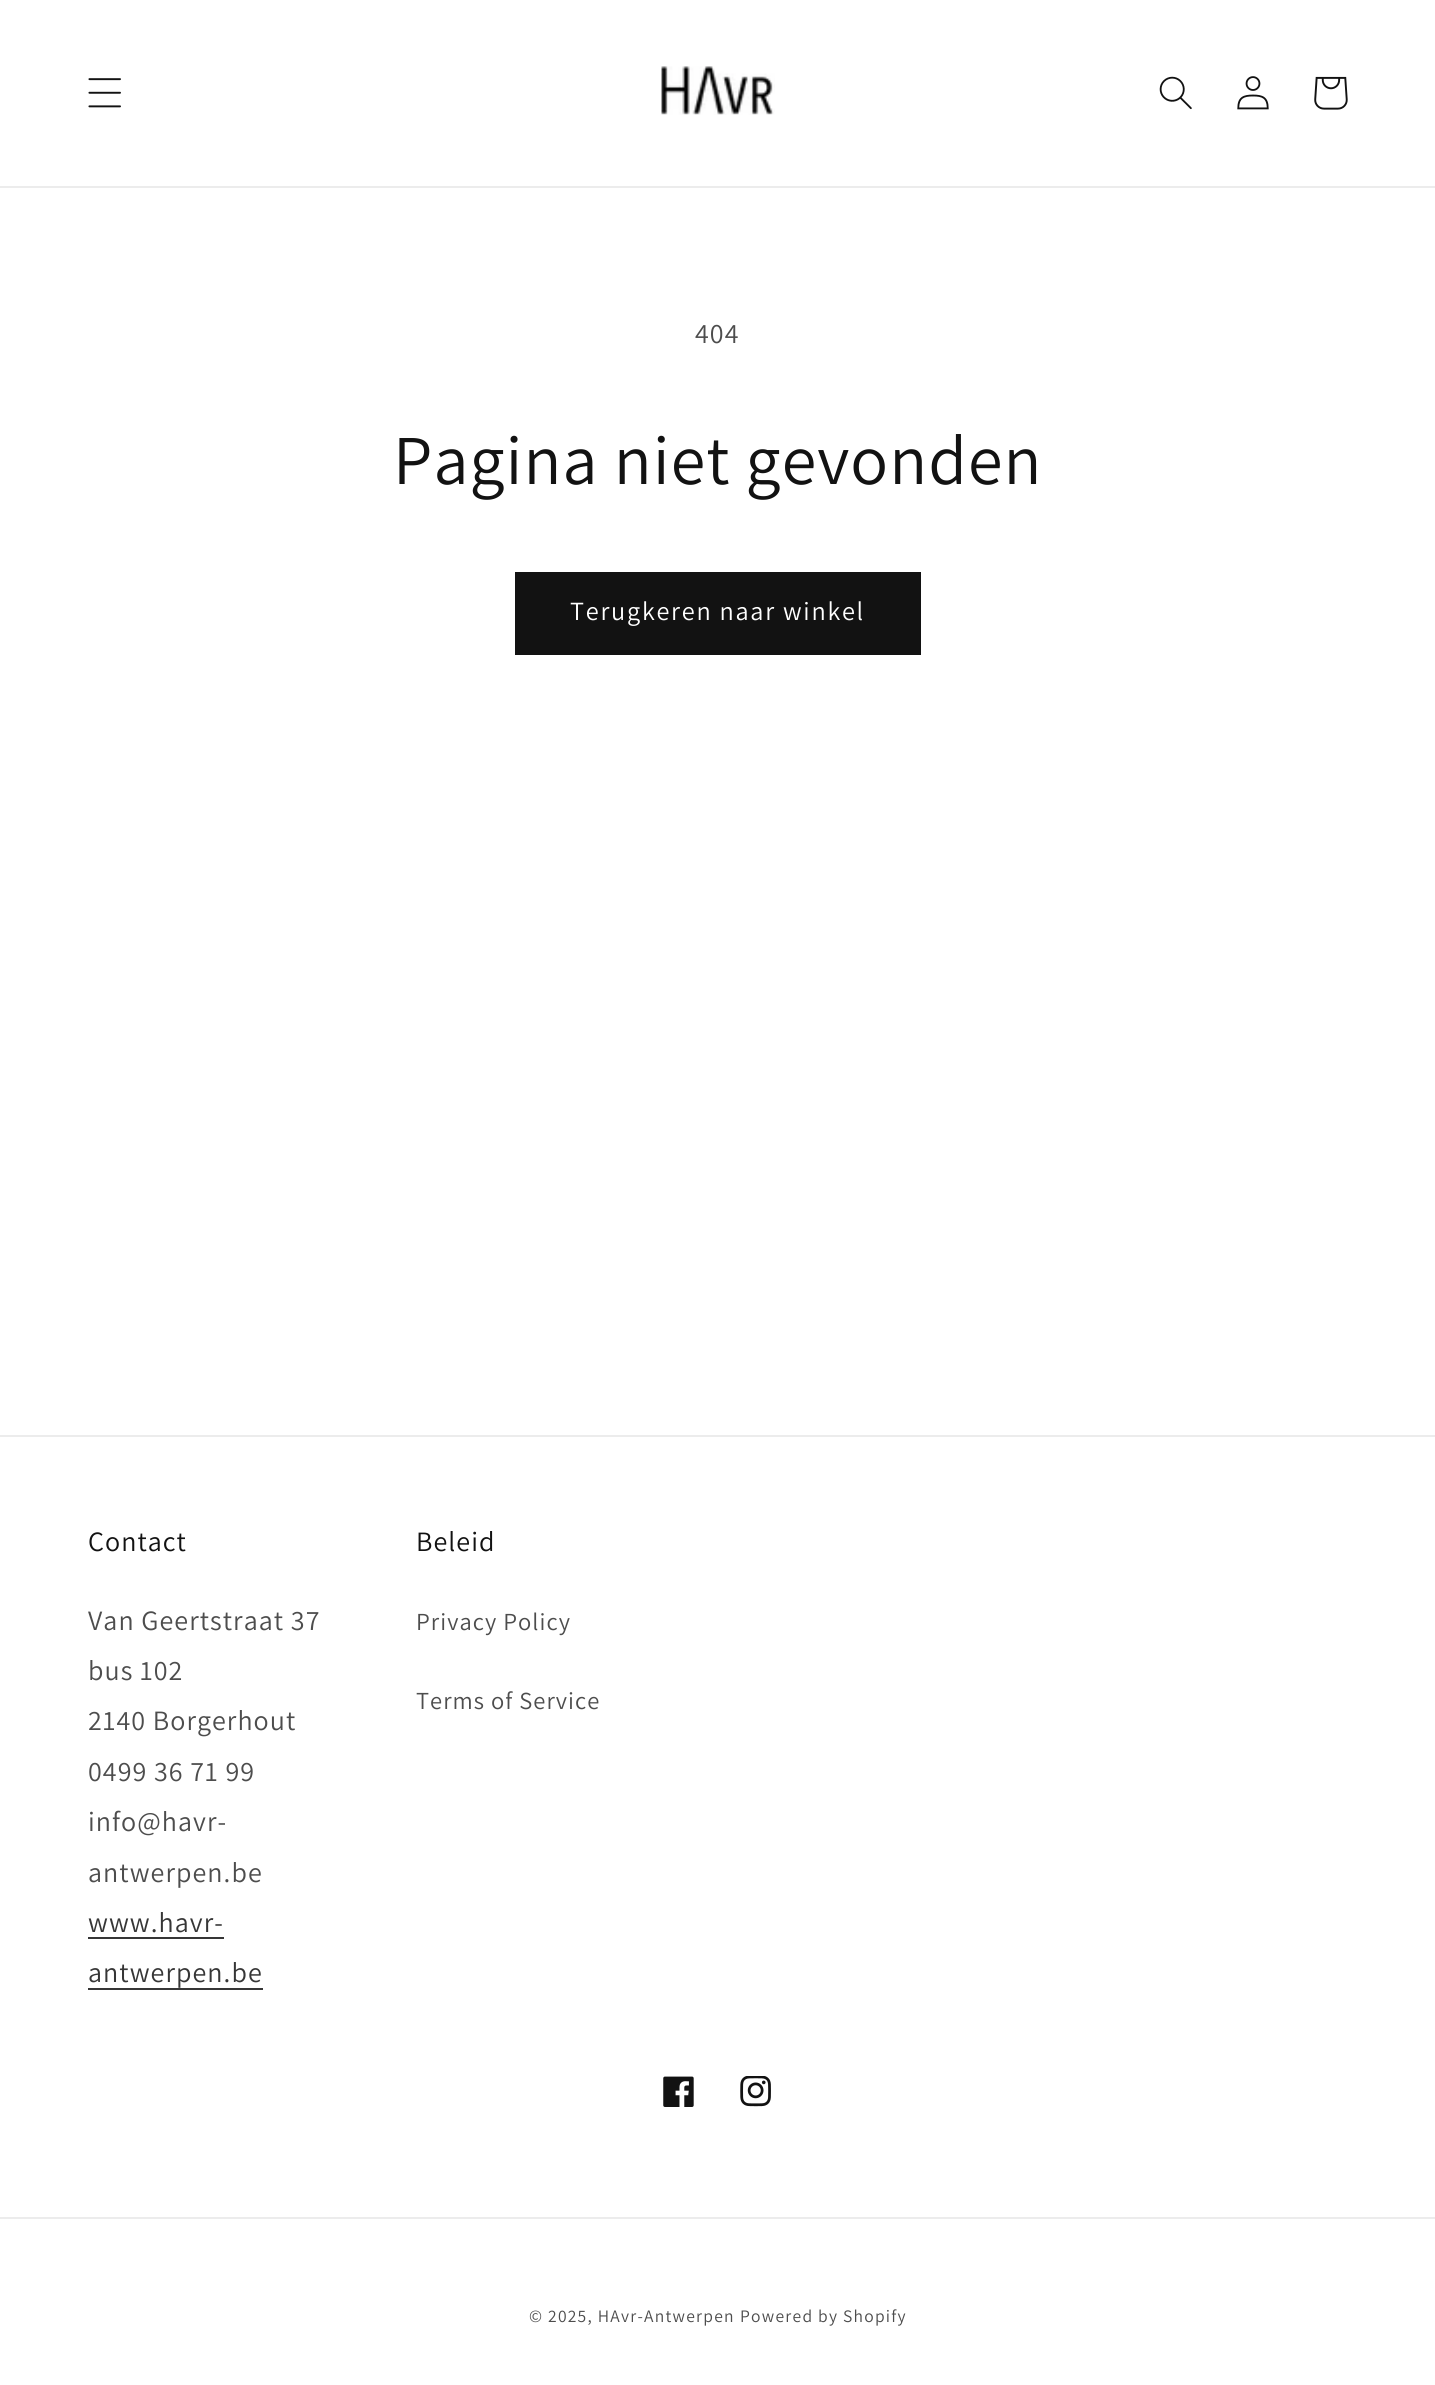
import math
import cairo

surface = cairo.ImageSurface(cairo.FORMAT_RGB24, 1435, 2385)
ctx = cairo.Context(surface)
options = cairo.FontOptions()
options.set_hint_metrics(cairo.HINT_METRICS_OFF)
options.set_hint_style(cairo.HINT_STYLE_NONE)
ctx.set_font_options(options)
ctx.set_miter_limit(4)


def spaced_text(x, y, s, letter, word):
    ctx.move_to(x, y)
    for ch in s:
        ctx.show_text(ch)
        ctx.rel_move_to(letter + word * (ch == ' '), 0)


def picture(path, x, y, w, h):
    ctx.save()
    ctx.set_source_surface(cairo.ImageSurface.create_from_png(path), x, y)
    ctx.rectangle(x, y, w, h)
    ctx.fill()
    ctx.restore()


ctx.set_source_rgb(1, 1, 1)
ctx.paint()
ctx.set_source_rgb(0.925, 0.925, 0.925)
ctx.rectangle(0, 186, 1435, 2)
ctx.fill()
picture("img1.png", 88, 78, 33, 30)
picture("img2.png", 661, 66, 114, 49)
picture("img3.png", 1159, 76, 33, 34)
picture("img4.png", 1237, 76, 32, 34)
picture("img5.png", 1314, 76, 34, 34)
ctx.select_font_face("Assistant")
ctx.set_font_size(28)
ctx.set_source_rgb(0.302, 0.302, 0.302)
spaced_text(695, 343, "404", 1.05, 0)
ctx.set_font_size(70)
ctx.set_source_rgb(0.071, 0.071, 0.071)
spaced_text(393, 484, "Pagina niet gevonden", 1.05, 0)
ctx.rectangle(516, 573, 404, 81)
ctx.stroke()
ctx.rectangle(517, 574, 402, 79)
ctx.fill()
ctx.set_font_size(26.25)
ctx.set_source_rgb(1, 1, 1)
spaced_text(570, 620, "Terugkeren naar winkel", 1.75, 0)
ctx.set_source_rgb(0.925, 0.925, 0.925)
ctx.rectangle(0, 1435, 1435, 2)
ctx.fill()
ctx.set_font_size(28)
ctx.set_source_rgb(0.071, 0.071, 0.071)
spaced_text(88, 1551, "Contact", 1.05, 0)
ctx.set_source_rgb(0.302, 0.302, 0.302)
spaced_text(88, 1630, "Van Geertstraat 37", 1.05, 0)
spaced_text(88, 1680, "bus 102", 1.05, 0)
spaced_text(88, 1730, "2140 Borgerhout", 1.05, 0)
spaced_text(88, 1781, "0499 36 71 99", 1.05, 0)
spaced_text(88, 1831, "info@havr-", 1.05, 0)
spaced_text(88, 1882, "antwerpen.be", 1.05, 0)
ctx.set_source_rgb(0.212, 0.212, 0.212)
spaced_text(88, 1932, "www.havr-", 1.05, 0)
ctx.rectangle(88, 1937, 136, 2)
ctx.fill()
spaced_text(88, 1982, "antwerpen.be", 1.05, 0)
ctx.rectangle(88, 1988, 175, 2)
ctx.fill()
ctx.set_source_rgb(0.071, 0.071, 0.071)
spaced_text(416, 1551, "Beleid", 1.05, 0)
ctx.set_font_size(24.5)
ctx.set_source_rgb(0.302, 0.302, 0.302)
spaced_text(416, 1630, "Privacy Policy", 1.05, 0)
spaced_text(416, 1709, "Terms of Service", 1.05, 0)
picture("img6.png", 663, 2076, 31, 31)
picture("img7.png", 740, 2076, 31, 31)
ctx.set_source_rgb(0.925, 0.925, 0.925)
ctx.rectangle(0, 2217, 1435, 2)
ctx.fill()
ctx.set_font_size(17.5)
ctx.set_source_rgb(0.302, 0.302, 0.302)
spaced_text(529, 2322, "© 2025, HAvr-Antwerpen", 1.25, 0)
spaced_text(740, 2322, "Powered by Shopify", 1.25, 0)
surface.write_to_png("page.png")
